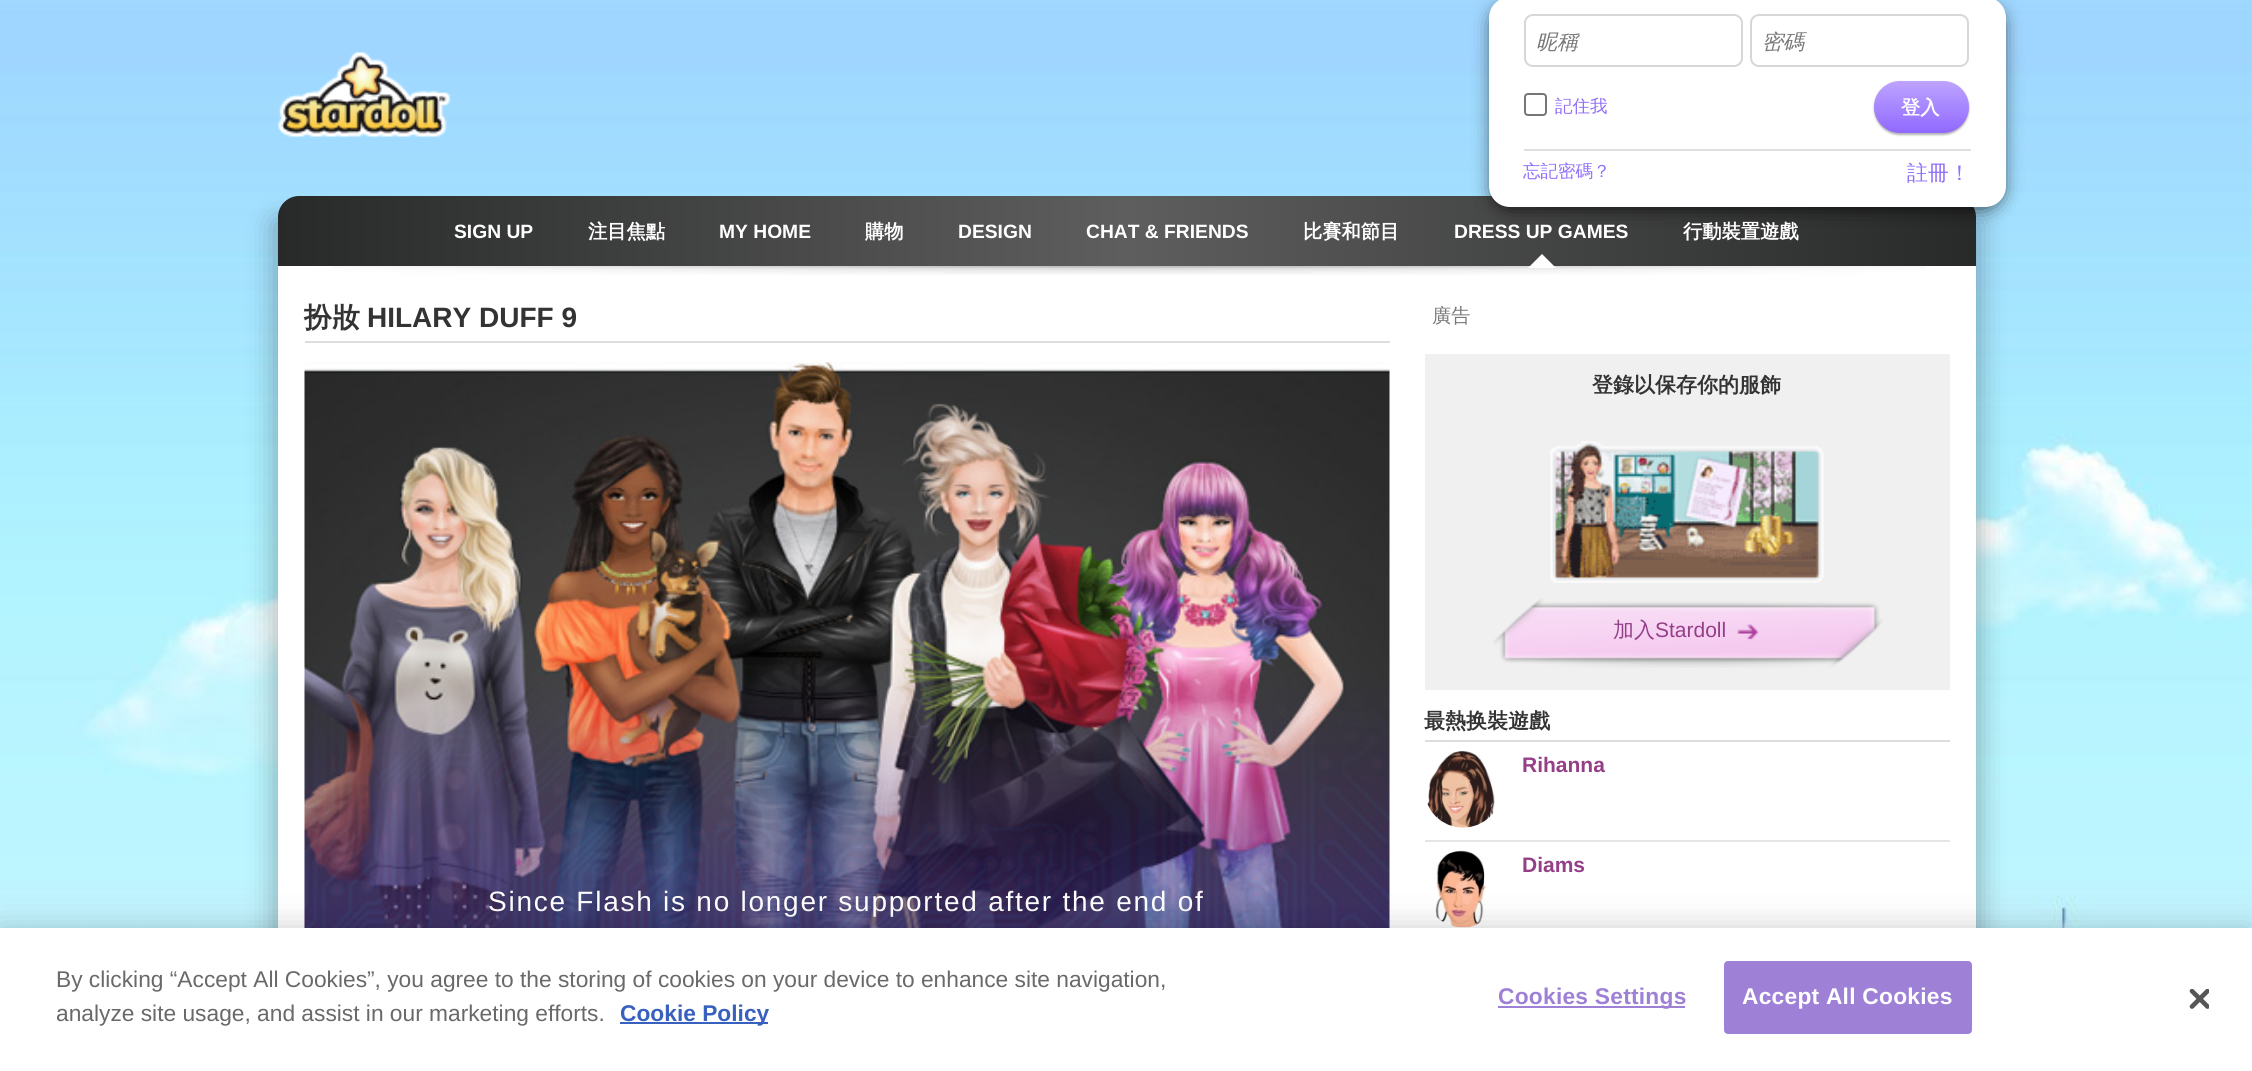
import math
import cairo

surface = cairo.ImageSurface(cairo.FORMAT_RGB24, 2252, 1071)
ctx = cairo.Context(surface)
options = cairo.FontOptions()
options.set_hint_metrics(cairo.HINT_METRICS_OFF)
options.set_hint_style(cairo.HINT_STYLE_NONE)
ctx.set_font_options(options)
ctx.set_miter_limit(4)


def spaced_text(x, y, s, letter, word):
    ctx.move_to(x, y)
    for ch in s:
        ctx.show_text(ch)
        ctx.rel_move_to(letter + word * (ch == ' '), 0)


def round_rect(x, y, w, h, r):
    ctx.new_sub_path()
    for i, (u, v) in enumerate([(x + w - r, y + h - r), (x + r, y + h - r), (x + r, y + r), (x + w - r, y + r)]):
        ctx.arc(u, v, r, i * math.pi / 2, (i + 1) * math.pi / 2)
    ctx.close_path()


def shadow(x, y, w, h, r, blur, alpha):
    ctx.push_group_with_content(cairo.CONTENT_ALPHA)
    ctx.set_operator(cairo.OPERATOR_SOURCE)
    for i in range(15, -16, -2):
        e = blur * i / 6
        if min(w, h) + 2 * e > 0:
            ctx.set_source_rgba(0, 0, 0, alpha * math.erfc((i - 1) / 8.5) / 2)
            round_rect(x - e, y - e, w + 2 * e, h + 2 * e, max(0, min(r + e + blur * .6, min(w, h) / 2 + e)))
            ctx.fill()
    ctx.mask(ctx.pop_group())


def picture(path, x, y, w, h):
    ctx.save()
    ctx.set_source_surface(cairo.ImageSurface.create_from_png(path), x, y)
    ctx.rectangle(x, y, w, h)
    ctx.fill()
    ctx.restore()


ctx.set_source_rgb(1, 1, 1)
ctx.paint()
picture("img1.png", 0, 0, 2252, 928)
picture("img2.png", 278, 52, 172, 85)
ctx.set_source_rgb(0, 0, 0)
shadow(275, 222, 35, 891, 0, 14, 0.3)
shadow(1944, 222, 35, 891, 0, 14, 0.3)
gradient = cairo.LinearGradient(278, 231, 1976, 231)
gradient.add_color_stop_rgba(0, 0.157, 0.161, 0.161, 1)
gradient.add_color_stop_rgba(0.5, 0.369, 0.369, 0.369, 1)
gradient.add_color_stop_rgba(1, 0.157, 0.161, 0.161, 1)
ctx.set_source(gradient)
ctx.new_path()
ctx.move_to(299, 196)
ctx.line_to(1955, 196)
ctx.curve_to(1966.5, 196, 1976, 205.5, 1976, 217)
ctx.line_to(1976, 266)
ctx.line_to(278, 266)
ctx.line_to(278, 217)
ctx.curve_to(278, 205.5, 287.5, 196, 299, 196)
ctx.close_path()
ctx.fill()
ctx.set_source_rgb(0, 0, 0)
shadow(1496, 9, 503, 196, 14, 10.5, 1)
ctx.set_source_rgb(1, 1, 1)
round_rect(1489, -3, 517, 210, 21)
ctx.fill()
round_rect(1525, 15, 217, 51, 8)
ctx.set_source_rgb(0.843, 0.843, 0.843)
ctx.stroke()
ctx.select_font_face("WenQuanYi Zen Hei Medium", cairo.FONT_SLANT_ITALIC)
ctx.set_font_size(21)
ctx.set_source_rgb(0.471, 0.471, 0.471)
ctx.move_to(1536, 49)
ctx.show_text("昵稱")
round_rect(1751, 15, 217, 51, 8)
ctx.set_source_rgb(0.843, 0.843, 0.843)
ctx.stroke()
ctx.set_source_rgb(0.471, 0.471, 0.471)
ctx.move_to(1762, 49)
ctx.show_text("密碼")
round_rect(1525, 94, 21, 21, 3)
ctx.set_source_rgb(0.463, 0.463, 0.463)
ctx.stroke()
ctx.select_font_face("WenQuanYi Zen Hei Medium")
ctx.set_font_size(17.5)
ctx.set_source_rgb(0.565, 0.431, 0.984)
ctx.move_to(1555, 112)
ctx.show_text("記住我")
ctx.set_source_rgb(0, 0, 0)
shadow(1874, 82, 95, 53, 26.5, 1, 0.3)
gradient = cairo.LinearGradient(1922, 81, 1922, 133)
gradient.add_color_stop_rgba(0, 0.745, 0.643, 1, 1)
gradient.add_color_stop_rgba(1, 0.565, 0.412, 1, 1)
ctx.set_source(gradient)
round_rect(1874, 81, 95, 52, 26)
ctx.fill()
ctx.select_font_face("WenQuanYi Zen Hei", cairo.FONT_SLANT_NORMAL, cairo.FONT_WEIGHT_BOLD)
ctx.set_font_size(19.25)
ctx.set_source_rgb(1, 1, 1)
ctx.move_to(1901, 114)
ctx.show_text("登入")
ctx.set_source_rgb(0.875, 0.875, 0.875)
ctx.rectangle(1524, 149, 447, 2)
ctx.fill()
ctx.select_font_face("WenQuanYi Zen Hei Medium")
ctx.set_font_size(17.5)
ctx.set_source_rgb(0.565, 0.431, 0.984)
ctx.move_to(1523, 177)
ctx.show_text("忘記密碼？")
ctx.set_font_size(21)
ctx.move_to(1907, 180)
ctx.show_text("註冊！")
ctx.select_font_face("Liberation Sans", cairo.FONT_SLANT_NORMAL, cairo.FONT_WEIGHT_BOLD)
ctx.set_font_size(19.25)
ctx.set_source_rgb(1, 1, 1)
ctx.move_to(454, 238)
ctx.show_text("SIGN UP")
ctx.select_font_face("WenQuanYi Zen Hei", cairo.FONT_SLANT_NORMAL, cairo.FONT_WEIGHT_BOLD)
ctx.move_to(588, 238)
ctx.show_text("注目焦點")
ctx.select_font_face("Liberation Sans", cairo.FONT_SLANT_NORMAL, cairo.FONT_WEIGHT_BOLD)
ctx.move_to(719, 238)
ctx.show_text("MY HOME")
ctx.select_font_face("WenQuanYi Zen Hei", cairo.FONT_SLANT_NORMAL, cairo.FONT_WEIGHT_BOLD)
ctx.move_to(865, 238)
ctx.show_text("購物")
ctx.select_font_face("Liberation Sans", cairo.FONT_SLANT_NORMAL, cairo.FONT_WEIGHT_BOLD)
ctx.move_to(958, 238)
ctx.show_text("DESIGN")
ctx.move_to(1086, 238)
ctx.show_text("CHAT & FRIENDS")
ctx.select_font_face("WenQuanYi Zen Hei", cairo.FONT_SLANT_NORMAL, cairo.FONT_WEIGHT_BOLD)
ctx.move_to(1303, 238)
ctx.show_text("比賽和節目")
ctx.select_font_face("Liberation Sans", cairo.FONT_SLANT_NORMAL, cairo.FONT_WEIGHT_BOLD)
ctx.move_to(1454, 238)
ctx.show_text("DRESS UP GAMES")
ctx.rectangle(278, 266, 1698, 662)
ctx.fill()
picture("img3.png", 332, 266, 1594, 9)
ctx.new_path()
ctx.move_to(1556, 268)
ctx.line_to(1528, 268)
ctx.line_to(1542, 254)
ctx.close_path()
ctx.fill()
ctx.select_font_face("WenQuanYi Zen Hei", cairo.FONT_SLANT_NORMAL, cairo.FONT_WEIGHT_BOLD)
ctx.move_to(1683, 238)
ctx.show_text("行動裝置遊戲")
ctx.set_source_rgb(0.867, 0.867, 0.867)
ctx.rectangle(305, 341, 1085, 2)
ctx.fill()
ctx.set_font_size(28)
ctx.set_source_rgb(0.2, 0.2, 0.2)
ctx.move_to(304, 327)
ctx.show_text("扮妝")
ctx.select_font_face("Liberation Sans", cairo.FONT_SLANT_NORMAL, cairo.FONT_WEIGHT_BOLD)
ctx.move_to(367, 327)
ctx.show_text("HILARY DUFF 9")
picture("img4.png", 304, 362, 1086, 566)
ctx.select_font_face("Liberation Sans")
ctx.set_source_rgb(1, 1, 1)
spaced_text(488, 911, "Since Flash is no longer supported after the end of", 1.75, 0)
ctx.select_font_face("WenQuanYi Zen Hei Medium")
ctx.set_font_size(19.25)
ctx.set_source_rgb(0.471, 0.471, 0.471)
ctx.move_to(1432, 322)
ctx.show_text("廣告")
ctx.set_source_rgb(0.941, 0.941, 0.941)
ctx.rectangle(1425, 354, 525, 336)
ctx.fill()
ctx.select_font_face("WenQuanYi Zen Hei", cairo.FONT_SLANT_NORMAL, cairo.FONT_WEIGHT_BOLD)
ctx.set_font_size(21)
ctx.set_source_rgb(0.2, 0.2, 0.2)
ctx.move_to(1592, 392)
ctx.show_text("登錄以保存你的服飾")
picture("img5.png", 1550, 441, 274, 142)
picture("img6.png", 1493, 598, 390, 70)
picture("img7.png", 1737, 624, 22, 16)
ctx.select_font_face("WenQuanYi Zen Hei Medium")
ctx.set_source_rgb(0.58, 0.247, 0.533)
ctx.move_to(1613, 637)
ctx.show_text("加入")
ctx.select_font_face("Liberation Sans")
ctx.move_to(1655, 637)
ctx.show_text("Stardoll")
ctx.set_source_rgb(0.867, 0.867, 0.867)
ctx.rectangle(1425, 740, 525, 2)
ctx.fill()
ctx.select_font_face("WenQuanYi Zen Hei", cairo.FONT_SLANT_NORMAL, cairo.FONT_WEIGHT_BOLD)
ctx.set_source_rgb(0.2, 0.2, 0.2)
ctx.move_to(1424, 728)
ctx.show_text("最熱换裝遊戲")
ctx.set_source_rgb(0.898, 0.898, 0.898)
ctx.rectangle(1425, 840, 525, 2)
ctx.fill()
picture("img8.png", 1427, 750, 68, 78)
ctx.select_font_face("Liberation Sans", cairo.FONT_SLANT_NORMAL, cairo.FONT_WEIGHT_BOLD)
ctx.set_source_rgb(0.58, 0.247, 0.533)
ctx.move_to(1522, 772)
ctx.show_text("Rihanna")
picture("img9.png", 1435, 850, 51, 78)
ctx.move_to(1522, 872)
ctx.show_text("Diams")
ctx.set_source_rgb(0, 0, 0)
shadow(0, 928, 2252, 143, 0, 16, 0.2)
ctx.set_source_rgb(1, 1, 1)
ctx.rectangle(0, 928, 2252, 143)
ctx.fill()
ctx.select_font_face("Liberation Sans")
ctx.set_font_size(22.75)
ctx.set_source_rgb(0.412, 0.412, 0.412)
ctx.move_to(56, 987)
ctx.show_text("By clicking “Accept All Cookies”, you agree to the storing of cookies on your device to enhance site navigation,")
ctx.move_to(56, 1021)
ctx.show_text("analyze site usage, and assist in our marketing efforts.")
ctx.set_source_rgb(0.22, 0.376, 0.745)
ctx.rectangle(620, 1022, 148, 2)
ctx.fill()
ctx.select_font_face("Liberation Sans", cairo.FONT_SLANT_NORMAL, cairo.FONT_WEIGHT_BOLD)
ctx.move_to(620, 1021)
ctx.show_text("Cookie Policy")
ctx.set_source_rgb(0.62, 0.502, 0.839)
ctx.rectangle(1498, 1006, 187, 2)
ctx.fill()
spaced_text(1498, 1004, "Cookies Settings", 0.25, 0)
round_rect(1725, 962, 246, 71, 3)
ctx.fill_preserve()
ctx.stroke()
ctx.set_source_rgb(1, 1, 1)
spaced_text(1742, 1004, "Accept All Cookies", 0.25, 0)
picture("img10.png", 2189, 989, 20, 20)
surface.write_to_png("page.png")
